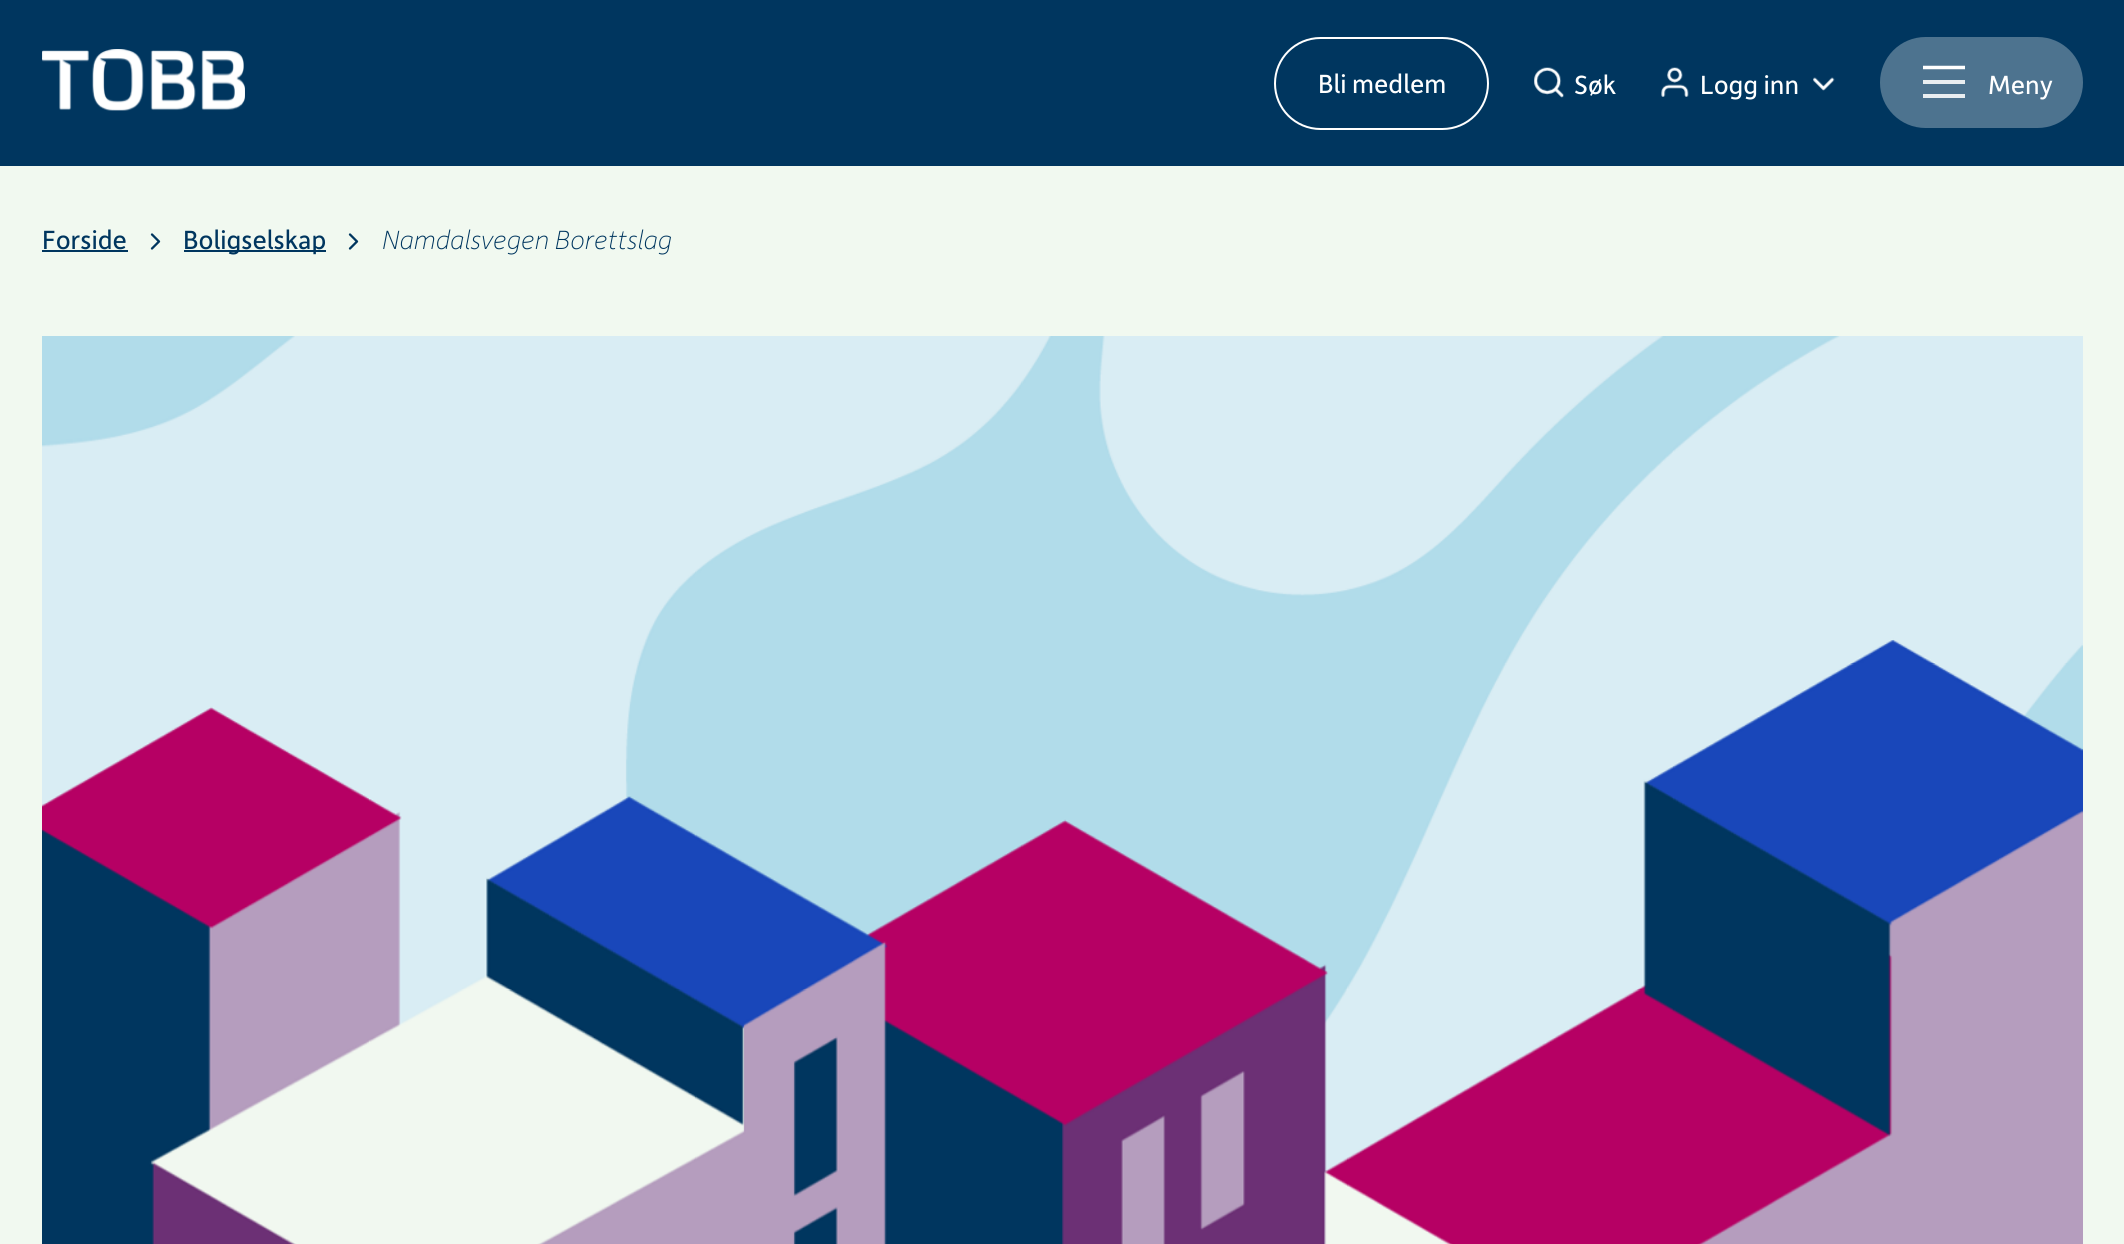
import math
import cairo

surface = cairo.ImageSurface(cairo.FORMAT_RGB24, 2124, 1244)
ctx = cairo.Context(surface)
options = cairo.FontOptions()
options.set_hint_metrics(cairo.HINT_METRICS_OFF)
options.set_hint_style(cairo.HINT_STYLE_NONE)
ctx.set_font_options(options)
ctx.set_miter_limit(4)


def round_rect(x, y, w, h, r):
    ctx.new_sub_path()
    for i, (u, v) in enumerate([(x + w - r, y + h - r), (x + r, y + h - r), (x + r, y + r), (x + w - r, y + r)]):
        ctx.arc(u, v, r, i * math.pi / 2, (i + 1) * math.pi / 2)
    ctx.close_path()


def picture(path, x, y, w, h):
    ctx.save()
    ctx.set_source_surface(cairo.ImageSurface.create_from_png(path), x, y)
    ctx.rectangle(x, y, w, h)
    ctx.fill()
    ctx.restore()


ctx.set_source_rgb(0.945, 0.973, 0.941)
ctx.paint()
ctx.set_source_rgb(0, 0.212, 0.373)
ctx.rectangle(0, 0, 2124, 166)
ctx.fill()
picture("img1.png", 42, 49, 203, 62)
round_rect(1275, 38, 213, 91, 45.5)
ctx.set_source_rgb(1, 1, 1)
ctx.stroke()
ctx.select_font_face("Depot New")
ctx.set_font_size(28)
ctx.move_to(1318, 93)
ctx.show_text("Bli medlem")
picture("img2.png", 1534, 67, 30, 31)
ctx.move_to(1574, 94)
ctx.show_text("Søk")
picture("img3.png", 1661, 67, 28, 30)
ctx.move_to(1700, 94)
ctx.show_text("Logg inn")
picture("img4.png", 1813, 77, 22, 14)
ctx.set_source_rgb(0.302, 0.451, 0.561)
round_rect(1881, 38, 201, 89, 44.5)
ctx.fill_preserve()
ctx.stroke()
ctx.new_path()
ctx.move_to(1923, 67.5)
ctx.line_to(1965, 67.5)
ctx.set_source_rgb(1, 1, 1)
ctx.set_line_width(3.5)
ctx.stroke()
ctx.set_source_rgb(0.914, 0.933, 0.945)
ctx.rectangle(1923, 80, 42, 4)
ctx.fill()
ctx.rectangle(1923, 94, 42, 4)
ctx.fill()
ctx.set_source_rgb(1, 1, 1)
ctx.move_to(1988, 94)
ctx.show_text("Meny")
ctx.set_source_rgb(0, 0.212, 0.373)
ctx.move_to(42, 249)
ctx.show_text("Forside")
ctx.rectangle(42, 250, 86, 2)
ctx.fill()
ctx.new_path()
ctx.move_to(152, 248.5)
ctx.line_to(159, 241.5)
ctx.line_to(152, 234.5)
ctx.set_line_width(2.3)
ctx.set_line_cap(cairo.LINE_CAP_ROUND)
ctx.set_line_join(cairo.LINE_JOIN_ROUND)
ctx.stroke()
ctx.rectangle(184, 250, 142, 2)
ctx.fill()
ctx.move_to(183, 249)
ctx.show_text("Boligselskap")
ctx.new_path()
ctx.move_to(350, 248.5)
ctx.line_to(357, 241.5)
ctx.line_to(350, 234.5)
ctx.stroke()
ctx.select_font_face("Depot New Thin", cairo.FONT_SLANT_ITALIC)
ctx.move_to(382, 249)
ctx.show_text("Namdalsvegen Borettslag")
picture("img5.png", 42, 336, 2041, 908)
surface.write_to_png("page.png")
